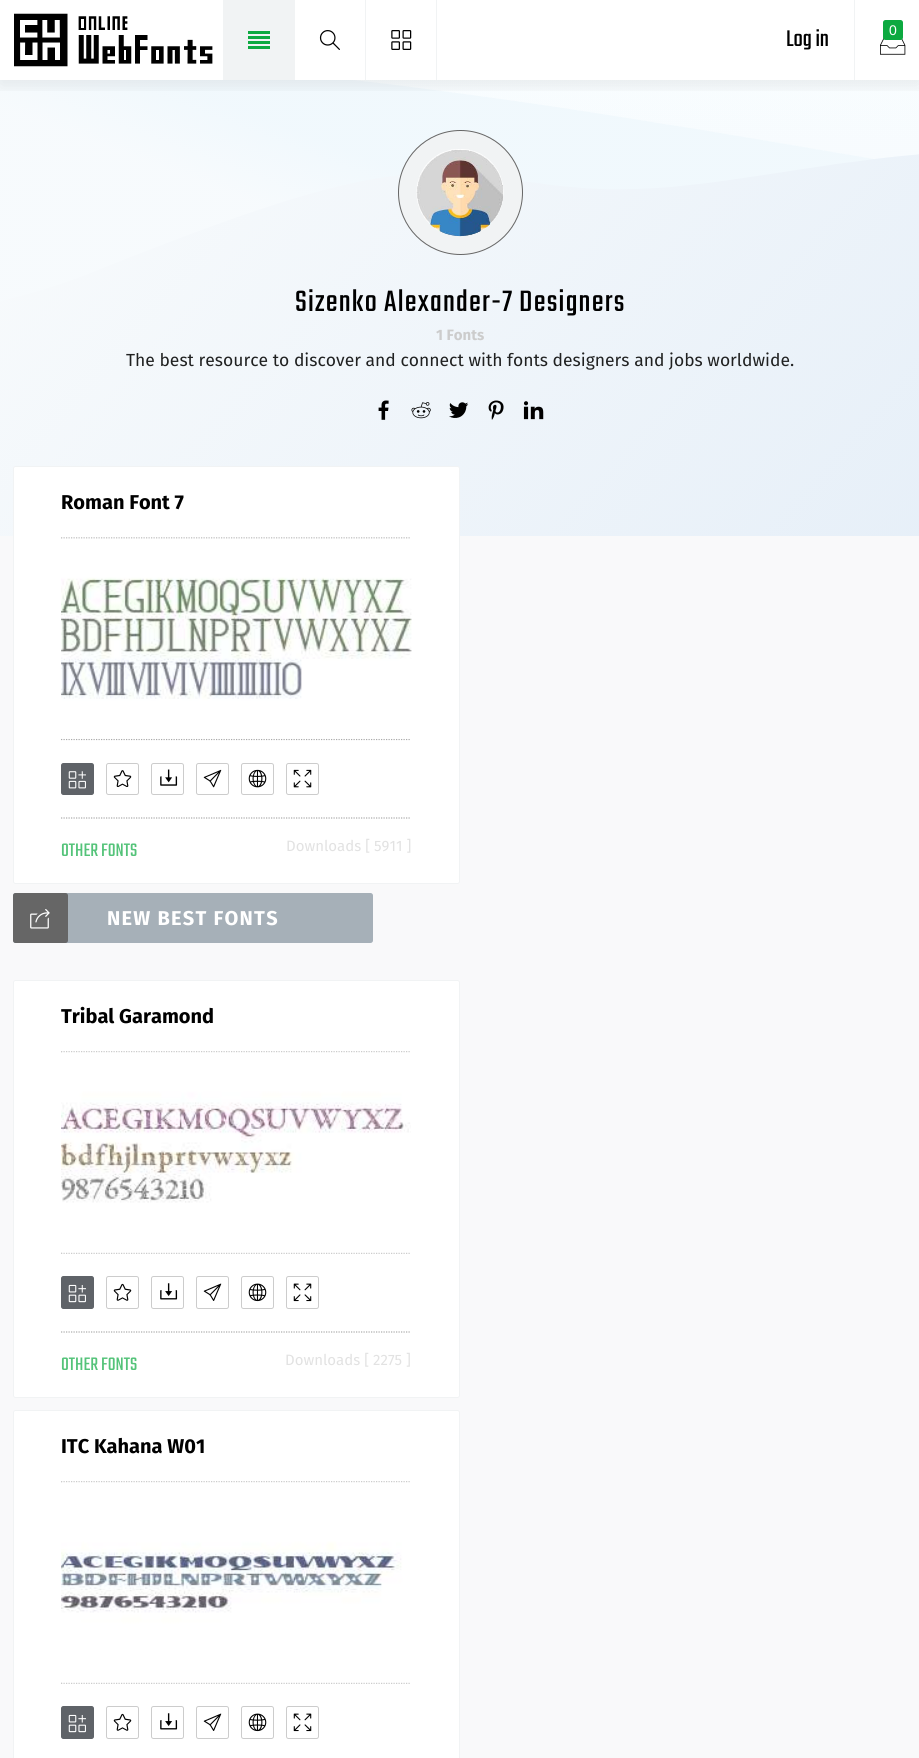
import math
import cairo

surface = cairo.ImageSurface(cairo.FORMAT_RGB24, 919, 1758)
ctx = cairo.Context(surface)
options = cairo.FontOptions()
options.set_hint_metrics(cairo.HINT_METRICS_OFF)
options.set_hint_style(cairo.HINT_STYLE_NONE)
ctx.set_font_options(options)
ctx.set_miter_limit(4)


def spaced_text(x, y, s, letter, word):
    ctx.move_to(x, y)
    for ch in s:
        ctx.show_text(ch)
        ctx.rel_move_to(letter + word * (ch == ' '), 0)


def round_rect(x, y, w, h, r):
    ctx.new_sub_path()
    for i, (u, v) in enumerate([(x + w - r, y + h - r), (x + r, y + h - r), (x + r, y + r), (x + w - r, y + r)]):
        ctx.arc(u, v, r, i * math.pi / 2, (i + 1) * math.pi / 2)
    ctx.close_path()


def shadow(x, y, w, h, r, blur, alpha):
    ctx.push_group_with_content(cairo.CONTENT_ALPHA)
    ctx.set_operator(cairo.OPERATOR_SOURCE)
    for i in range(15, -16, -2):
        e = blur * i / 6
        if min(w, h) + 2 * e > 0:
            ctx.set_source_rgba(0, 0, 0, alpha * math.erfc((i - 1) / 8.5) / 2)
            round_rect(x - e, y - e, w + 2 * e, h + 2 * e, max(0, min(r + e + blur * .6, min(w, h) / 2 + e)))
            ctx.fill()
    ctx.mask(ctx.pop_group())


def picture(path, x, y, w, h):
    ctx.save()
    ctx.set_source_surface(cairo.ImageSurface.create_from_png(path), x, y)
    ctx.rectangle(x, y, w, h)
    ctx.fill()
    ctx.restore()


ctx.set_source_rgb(1, 1, 1)
ctx.paint()
picture("img5.png", 0, 80, 919, 456)
ctx.save()
ctx.rectangle(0, 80, 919, 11)
ctx.clip()
ctx.set_source_rgb(0, 0, 0)
shadow(0, 5, 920, 80, 0, 9.5, 0.08)
ctx.restore()
ctx.set_source_rgb(0, 0, 0)
ctx.rectangle(14, 13, 199, 54)
ctx.fill()
picture("img1.png", 14, 9, 200, 62)
ctx.set_source_rgb(0.945, 0.953, 0.957)
ctx.rectangle(223, 0, 72, 80)
ctx.fill()
ctx.set_source_rgb(0.047, 0.663, 0.251)
ctx.rectangle(248, 31, 22, 3)
ctx.fill()
ctx.rectangle(248, 36, 22, 3)
ctx.fill()
ctx.rectangle(248, 41, 22, 3)
ctx.fill()
ctx.rectangle(248, 46, 22, 3)
ctx.fill()
ctx.set_source_rgb(0.945, 0.953, 0.957)
ctx.rectangle(365, 0, 1, 80)
ctx.fill()
picture("img2.png", 319, 30, 21, 20)
ctx.rectangle(436, 0, 1, 80)
ctx.fill()
picture("img3.png", 391, 30, 21, 20)
ctx.rectangle(854, 0, 1, 80)
ctx.fill()
ctx.select_font_face("Teko")
ctx.set_font_size(25)
ctx.set_source_rgb(0, 0, 0)
ctx.move_to(786, 46)
ctx.show_text("Log in")
picture("img4.png", 880, 37, 26, 18)
ctx.set_source_rgb(0.047, 0.663, 0.251)
round_rect(883, 20, 20, 20, 2.5)
ctx.fill()
ctx.select_font_face("Liberation Sans")
ctx.set_font_size(14)
ctx.set_source_rgb(1, 1, 1)
ctx.move_to(889, 35)
ctx.show_text("0")
ctx.set_source_rgb(0.973, 0.976, 0.98)
ctx.rectangle(0, 536, 919, 1222)
ctx.fill()
ctx.set_source_rgb(0.945, 0.953, 0.957)
ctx.arc(460.5, 192.5, 62.5, 0, 2 * math.pi)
ctx.fill()
picture("img6.png", 416, 149, 88, 88)
ctx.arc(460.5, 192.5, 62, 0, 2 * math.pi)
ctx.set_source_rgb(0.4, 0.4, 0.4)
ctx.set_line_width(1)
ctx.stroke()
picture("img7.png", 430, 204, 72, 33)
ctx.select_font_face("Teko")
ctx.set_font_size(32.5)
ctx.set_source_rgb(0, 0, 0)
spaced_text(295, 311, "Sizenko Alexander-7 Designers", 1.25, 0)
ctx.select_font_face("Fira Sans", cairo.FONT_SLANT_NORMAL, cairo.FONT_WEIGHT_BOLD)
ctx.set_font_size(15)
ctx.set_source_rgb(0.8, 0.8, 0.8)
ctx.move_to(436, 340)
ctx.show_text("1 Fonts")
ctx.select_font_face("Fira Sans")
ctx.set_font_size(17.5)
ctx.set_source_rgb(0.125, 0.129, 0.129)
ctx.move_to(126, 366)
ctx.show_text("The best resource to discover and connect with fonts designers and jobs worldwide.")
picture("img8.png", 378, 400, 11, 20)
picture("img9.png", 411, 402, 20, 17)
picture("img10.png", 449, 402, 20, 16)
picture("img11.png", 488, 400, 16, 20)
picture("img12.png", 523, 401, 21, 19)
ctx.set_source_rgb(1, 1, 1)
round_rect(13.5, 466.5, 446, 417, 2)
ctx.fill_preserve()
ctx.set_source_rgb(0.945, 0.953, 0.957)
ctx.stroke()
ctx.select_font_face("Fira Sans", cairo.FONT_SLANT_NORMAL, cairo.FONT_WEIGHT_BOLD)
ctx.set_font_size(20)
ctx.set_source_rgb(0, 0, 0)
ctx.move_to(61, 509)
ctx.show_text("Roman Font 7")
ctx.new_path()
ctx.move_to(61, 538)
ctx.line_to(411, 538)
ctx.set_source_rgb(0.667, 0.667, 0.667)
ctx.set_line_width(1.2)
ctx.set_dash([1.25, 1.25])
ctx.stroke()
ctx.new_path()
ctx.move_to(61, 739.5)
ctx.line_to(411, 739.5)
ctx.stroke()
picture("img13.png", 61, 538, 351, 201)
picture("img14.png", 61, 538, 351, 157)
ctx.set_source_rgb(0.373, 0.388, 0.408)
round_rect(61.5, 763.5, 32, 31, 2)
ctx.fill_preserve()
ctx.set_line_width(1)
ctx.set_dash([])
ctx.stroke()
picture("img15.png", 68, 771, 18, 18)
round_rect(106.5, 763.5, 32, 31, 2)
ctx.set_source_rgb(0.8, 0.8, 0.8)
ctx.stroke()
picture("img16.png", 113, 770, 19, 17)
round_rect(151.5, 763.5, 32, 31, 2)
ctx.stroke()
picture("img17.png", 160, 769, 18, 17)
round_rect(196.5, 763.5, 32, 31, 2)
ctx.stroke()
picture("img18.png", 203, 769, 19, 19)
round_rect(241.5, 763.5, 32, 31, 2)
ctx.stroke()
picture("img19.png", 248, 769, 19, 19)
round_rect(286.5, 763.5, 32, 31, 2)
ctx.stroke()
picture("img20.png", 293, 769, 19, 19)
ctx.new_path()
ctx.move_to(61, 818)
ctx.line_to(411, 818)
ctx.set_source_rgb(0.667, 0.667, 0.667)
ctx.set_line_width(1.2)
ctx.set_dash([1.25, 1.25])
ctx.stroke()
ctx.select_font_face("Teko")
ctx.set_source_rgb(0.329, 0.765, 0.475)
ctx.move_to(61, 856)
ctx.show_text("OTHER FONTS")
ctx.select_font_face("Fira Sans")
ctx.set_font_size(15)
ctx.set_source_rgb(0.886, 0.886, 0.886)
ctx.move_to(286, 851)
ctx.show_text("Downloads [ 5911 ]")
ctx.set_source_rgb(0.651, 0.69, 0.722)
round_rect(13, 893, 360, 50, 2.5)
ctx.fill()
ctx.set_source_rgb(0.4, 0.4, 0.4)
round_rect(13, 893, 55, 50, 2.5)
ctx.fill()
picture("img21.png", 30, 909, 20, 20)
ctx.select_font_face("Fira Sans", cairo.FONT_SLANT_NORMAL, cairo.FONT_WEIGHT_BOLD)
ctx.set_font_size(20)
ctx.set_source_rgb(1, 1, 1)
spaced_text(107, 925, "NEW BEST FONTS", 1.25, 0)
round_rect(13.5, 980.5, 446, 417, 2)
ctx.fill_preserve()
ctx.set_source_rgb(0.945, 0.953, 0.957)
ctx.set_line_width(1)
ctx.set_dash([])
ctx.stroke()
ctx.set_source_rgb(0, 0, 0)
ctx.move_to(61, 1023)
ctx.show_text("Tribal Garamond")
ctx.new_path()
ctx.move_to(61, 1052)
ctx.line_to(411, 1052)
ctx.set_source_rgb(0.667, 0.667, 0.667)
ctx.set_line_width(1.2)
ctx.set_dash([1.25, 1.25])
ctx.stroke()
ctx.new_path()
ctx.move_to(61, 1253)
ctx.line_to(411, 1253)
ctx.stroke()
picture("img22.png", 61, 1052, 350, 201)
picture("img23.png", 61, 1052, 349, 201)
ctx.set_source_rgb(0.373, 0.388, 0.408)
round_rect(61.5, 1276.5, 32, 32, 2)
ctx.fill_preserve()
ctx.set_line_width(1)
ctx.set_dash([])
ctx.stroke()
picture("img24.png", 68, 1284, 18, 19)
round_rect(106.5, 1276.5, 32, 32, 2)
ctx.set_source_rgb(0.8, 0.8, 0.8)
ctx.stroke()
picture("img25.png", 113, 1283, 19, 18)
round_rect(151.5, 1276.5, 32, 32, 2)
ctx.stroke()
picture("img26.png", 160, 1283, 18, 17)
round_rect(196.5, 1276.5, 32, 32, 2)
ctx.stroke()
picture("img27.png", 203, 1283, 19, 18)
round_rect(241.5, 1276.5, 32, 32, 2)
ctx.stroke()
picture("img28.png", 248, 1283, 19, 19)
round_rect(286.5, 1276.5, 32, 32, 2)
ctx.stroke()
picture("img29.png", 293, 1283, 19, 19)
ctx.new_path()
ctx.move_to(61, 1332)
ctx.line_to(411, 1332)
ctx.set_source_rgb(0.667, 0.667, 0.667)
ctx.set_line_width(1.2)
ctx.set_dash([1.25, 1.25])
ctx.stroke()
ctx.select_font_face("Teko")
ctx.set_source_rgb(0.329, 0.765, 0.475)
ctx.move_to(61, 1370)
ctx.show_text("OTHER FONTS")
ctx.select_font_face("Fira Sans")
ctx.set_font_size(15)
ctx.set_source_rgb(0.886, 0.886, 0.886)
ctx.move_to(285, 1365)
ctx.show_text("Downloads [ 2275 ]")
ctx.set_source_rgb(1, 1, 1)
round_rect(13.5, 1410.5, 446, 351, 2)
ctx.fill_preserve()
ctx.set_source_rgb(0.945, 0.953, 0.957)
ctx.set_line_width(1)
ctx.set_dash([])
ctx.stroke()
ctx.select_font_face("Fira Sans", cairo.FONT_SLANT_NORMAL, cairo.FONT_WEIGHT_BOLD)
ctx.set_font_size(20)
ctx.set_source_rgb(0, 0, 0)
ctx.move_to(61, 1453)
ctx.show_text("ITC Kahana W01")
ctx.new_path()
ctx.move_to(61, 1482)
ctx.line_to(411, 1482)
ctx.set_source_rgb(0.667, 0.667, 0.667)
ctx.set_line_width(1.2)
ctx.set_dash([1.25, 1.25])
ctx.stroke()
ctx.new_path()
ctx.move_to(61, 1683)
ctx.line_to(411, 1683)
ctx.stroke()
picture("img30.png", 61, 1482, 349, 201)
picture("img31.png", 61, 1482, 349, 201)
ctx.set_source_rgb(0.373, 0.388, 0.408)
round_rect(61.5, 1706.5, 32, 32, 2)
ctx.fill_preserve()
ctx.set_line_width(1)
ctx.set_dash([])
ctx.stroke()
picture("img24.png", 68, 1714, 18, 19)
round_rect(106.5, 1706.5, 32, 32, 2)
ctx.set_source_rgb(0.8, 0.8, 0.8)
ctx.stroke()
picture("img25.png", 113, 1713, 19, 18)
round_rect(151.5, 1706.5, 32, 32, 2)
ctx.stroke()
picture("img26.png", 160, 1713, 18, 17)
round_rect(196.5, 1706.5, 32, 32, 2)
ctx.stroke()
picture("img27.png", 203, 1713, 19, 18)
round_rect(241.5, 1706.5, 32, 32, 2)
ctx.stroke()
picture("img28.png", 248, 1713, 19, 19)
round_rect(286.5, 1706.5, 32, 32, 2)
ctx.stroke()
picture("img29.png", 293, 1713, 19, 19)
surface.write_to_png("page.png")
